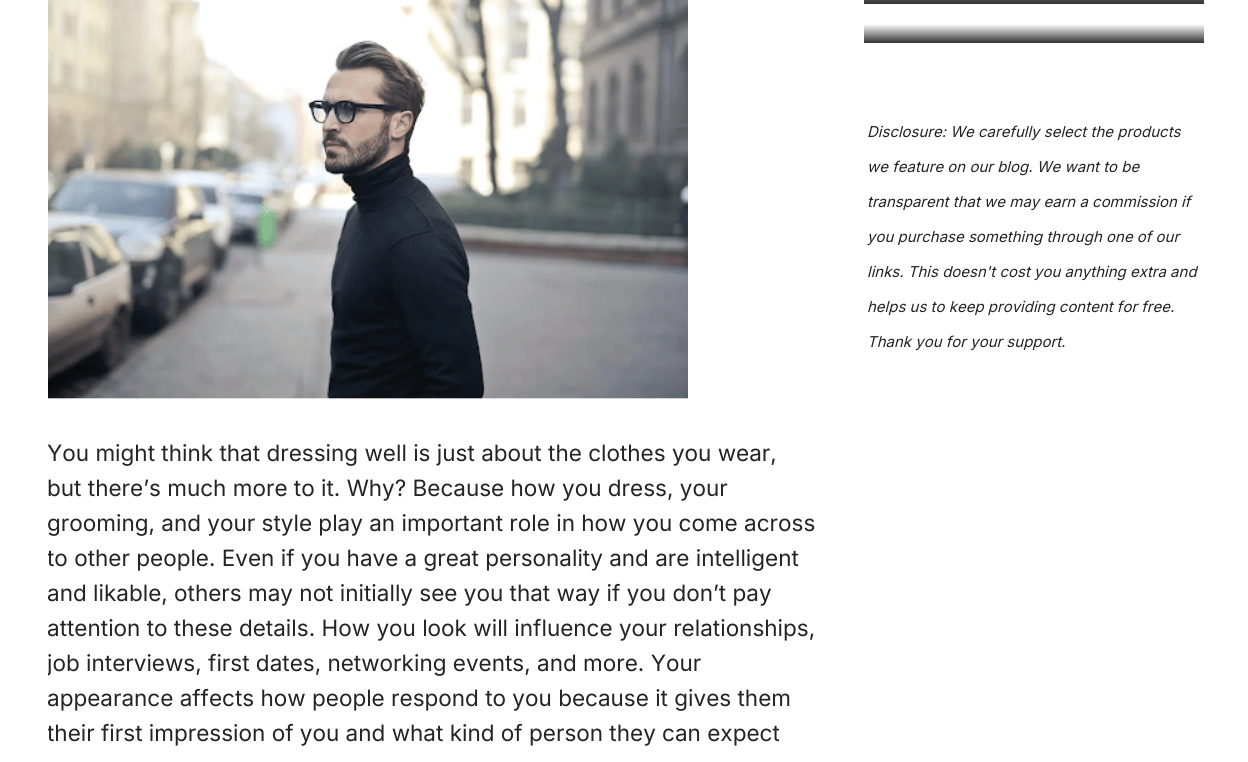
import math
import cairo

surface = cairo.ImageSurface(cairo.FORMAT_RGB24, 1248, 762)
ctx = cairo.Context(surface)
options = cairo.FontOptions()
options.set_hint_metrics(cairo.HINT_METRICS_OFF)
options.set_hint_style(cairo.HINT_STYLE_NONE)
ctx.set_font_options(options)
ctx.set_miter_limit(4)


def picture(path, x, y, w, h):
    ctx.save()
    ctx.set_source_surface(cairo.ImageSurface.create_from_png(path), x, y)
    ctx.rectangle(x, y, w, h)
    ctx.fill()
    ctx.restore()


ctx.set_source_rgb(1, 1, 1)
ctx.paint()
gradient = cairo.LinearGradient(1034, -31, 1034, 3.8)
gradient.add_color_stop_rgba(0, 1, 1, 1, 1)
gradient.add_color_stop_rgba(1, 0.2, 0.2, 0.2, 1)
ctx.set_source(gradient)
ctx.rectangle(864, 0, 340, 4)
ctx.fill()
gradient = cairo.LinearGradient(1034, 24, 1034, 43)
gradient.add_color_stop_rgba(0, 1, 1, 1, 1)
gradient.add_color_stop_rgba(1, 0.2, 0.2, 0.2, 1)
ctx.set_source(gradient)
ctx.rectangle(864, 24, 340, 19)
ctx.fill()
ctx.select_font_face("Inter", cairo.FONT_SLANT_ITALIC)
ctx.set_font_size(15)
ctx.set_source_rgb(0.141, 0.141, 0.141)
ctx.move_to(867, 137)
ctx.show_text("Disclosure: We carefully select the products")
ctx.move_to(867, 172)
ctx.show_text("we feature on our blog. We want to be")
ctx.move_to(867, 207)
ctx.show_text("transparent that we may earn a commission if")
ctx.move_to(867, 242)
ctx.show_text("you purchase something through one of our")
ctx.move_to(867, 277)
ctx.show_text("links. This doesn't cost you anything extra and")
ctx.move_to(867, 312)
ctx.show_text("helps us to keep providing content for free.")
ctx.move_to(867, 347)
ctx.show_text("Thank you for your support.")
picture("img1.png", 48, 0, 640, 399)
ctx.select_font_face("Inter")
ctx.set_font_size(22.5)
ctx.move_to(47, 461)
ctx.show_text("You might think that dressing well is just about the clothes you wear,")
ctx.move_to(47, 496)
ctx.show_text("but there’s much more to it. Why? Because how you dress, your")
ctx.move_to(47, 531)
ctx.show_text("grooming, and your style play an important role in how you come across")
ctx.save()
ctx.rectangle(48, 0, 768, 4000)
ctx.clip()
ctx.move_to(47, 566)
ctx.show_text("to other people. Even if you have a great personality and are intelligent")
ctx.restore()
ctx.move_to(47, 601)
ctx.show_text("and likable, others may not initially see you that way if you don’t pay")
ctx.move_to(47, 636)
ctx.show_text("attention to these details. How you look will influence your relationships,")
ctx.save()
ctx.rectangle(48, 0, 768, 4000)
ctx.clip()
ctx.move_to(47, 671)
ctx.show_text("job interviews, first dates, networking events, and more. Your")
ctx.restore()
ctx.move_to(47, 706)
ctx.show_text("appearance affects how people respond to you because it gives them")
ctx.save()
ctx.rectangle(48, 0, 768, 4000)
ctx.clip()
ctx.move_to(47, 741)
ctx.show_text("their first impression of you and what kind of person they can expect")
ctx.restore()
surface.write_to_png("page.png")
